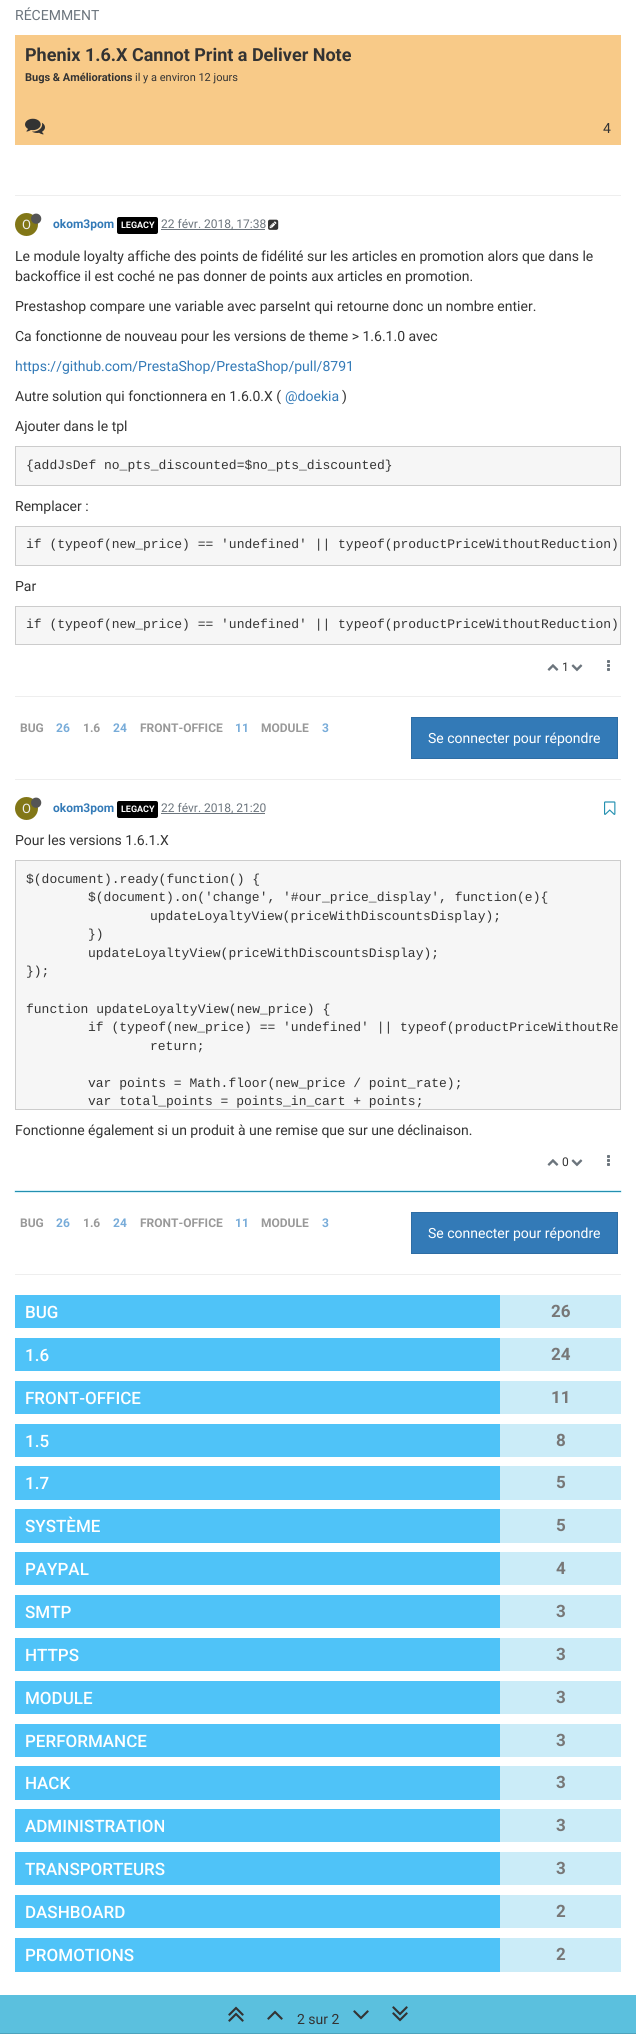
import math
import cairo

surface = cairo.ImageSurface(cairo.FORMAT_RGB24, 636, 2034)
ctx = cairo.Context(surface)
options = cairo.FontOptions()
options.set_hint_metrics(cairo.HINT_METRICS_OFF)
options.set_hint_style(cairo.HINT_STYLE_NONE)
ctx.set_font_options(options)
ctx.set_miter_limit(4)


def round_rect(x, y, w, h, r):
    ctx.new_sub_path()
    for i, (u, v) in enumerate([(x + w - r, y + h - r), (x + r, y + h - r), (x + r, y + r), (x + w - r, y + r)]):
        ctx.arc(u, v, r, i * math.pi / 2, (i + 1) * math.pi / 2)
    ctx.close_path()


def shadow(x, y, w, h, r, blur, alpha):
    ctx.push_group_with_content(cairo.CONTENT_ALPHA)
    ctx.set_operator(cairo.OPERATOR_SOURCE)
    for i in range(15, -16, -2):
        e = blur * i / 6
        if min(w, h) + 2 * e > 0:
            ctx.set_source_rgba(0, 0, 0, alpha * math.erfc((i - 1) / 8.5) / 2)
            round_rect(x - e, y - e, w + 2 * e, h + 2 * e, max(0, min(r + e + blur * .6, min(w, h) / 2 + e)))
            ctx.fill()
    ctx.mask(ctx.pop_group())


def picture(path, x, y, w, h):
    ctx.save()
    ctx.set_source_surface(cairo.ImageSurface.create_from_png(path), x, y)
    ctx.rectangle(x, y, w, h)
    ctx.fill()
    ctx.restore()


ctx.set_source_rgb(1, 1, 1)
ctx.paint()
ctx.select_font_face("Roboto")
ctx.set_font_size(14)
ctx.set_source_rgb(0.424, 0.459, 0.49)
ctx.move_to(15, 20)
ctx.show_text("RÉCEMMENT")
ctx.set_source_rgb(0.969, 0.792, 0.533)
ctx.rectangle(15, 35, 606, 110)
ctx.fill()
ctx.select_font_face("Roboto", cairo.FONT_SLANT_NORMAL, cairo.FONT_WEIGHT_BOLD)
ctx.set_font_size(18)
ctx.set_source_rgb(0.2, 0.2, 0.2)
ctx.move_to(25, 61)
ctx.show_text("Phenix 1.6.X Cannot Print a Deliver Note")
ctx.set_font_size(11)
ctx.move_to(25, 81)
ctx.show_text("Bugs & Améliorations")
ctx.select_font_face("Roboto")
ctx.move_to(135, 81)
ctx.show_text("il y a environ 12 jours")
picture("img1.png", 25, 118, 20, 17)
ctx.set_font_size(14)
ctx.move_to(603, 133)
ctx.show_text("4")
ctx.set_source_rgb(0.933, 0.933, 0.933)
ctx.rectangle(15, 195, 606, 1)
ctx.fill()
ctx.set_source_rgb(0.51, 0.467, 0.09)
ctx.arc(26.5, 224.5, 11.5, 0, 2 * math.pi)
ctx.fill()
ctx.set_font_size(13)
ctx.set_source_rgb(0.933, 0.933, 0.933)
ctx.move_to(22, 229)
ctx.show_text("O")
picture("img2.png", 31, 213, 11, 11)
ctx.select_font_face("Roboto", cairo.FONT_SLANT_NORMAL, cairo.FONT_WEIGHT_BOLD)
ctx.set_font_size(12)
ctx.set_source_rgb(0.2, 0.478, 0.718)
ctx.move_to(53, 228)
ctx.show_text("okom3pom")
ctx.set_source_rgb(0, 0, 0)
round_rect(117, 217, 41, 17, 2)
ctx.fill()
ctx.set_font_size(9)
ctx.set_source_rgb(1, 1, 1)
ctx.move_to(121, 228)
ctx.show_text("LEGACY")
ctx.set_source_rgb(0.424, 0.459, 0.49)
ctx.rectangle(161, 229, 104, 1)
ctx.fill()
ctx.select_font_face("Roboto")
ctx.set_font_size(12)
ctx.move_to(161, 228)
ctx.show_text("22 févr. 2018, 17:38")
picture("img3.png", 268, 219, 11, 11)
ctx.set_font_size(14)
ctx.set_source_rgb(0.2, 0.2, 0.2)
ctx.move_to(15, 261)
ctx.show_text("Le module loyalty affiche des points de fidélité sur les articles en promotion alors que dans le")
ctx.move_to(15, 281)
ctx.show_text("backoffice il est coché ne pas donner de points aux articles en promotion.")
ctx.move_to(15, 311)
ctx.show_text("Prestashop compare une variable avec parseInt qui retourne donc un nombre entier.")
ctx.move_to(15, 341)
ctx.show_text("Ca fonctionne de nouveau pour les versions de theme > 1.6.1.0 avec")
ctx.set_source_rgb(0.2, 0.478, 0.718)
ctx.move_to(15, 371)
ctx.show_text("https://github.com/PrestaShop/PrestaShop/pull/8791")
ctx.set_source_rgb(0.2, 0.2, 0.2)
ctx.move_to(15, 401)
ctx.show_text("Autre solution qui fonctionnera en 1.6.0.X (")
ctx.set_source_rgb(0.2, 0.478, 0.718)
ctx.move_to(285, 401)
ctx.show_text("@doekia")
ctx.set_source_rgb(0.2, 0.2, 0.2)
ctx.move_to(342, 401)
ctx.show_text(")")
ctx.move_to(15, 431)
ctx.show_text("Ajouter dans le tpl")
ctx.set_source_rgb(0.961, 0.961, 0.961)
ctx.rectangle(15.5, 446.5, 605, 39)
ctx.fill_preserve()
ctx.set_source_rgb(0.8, 0.8, 0.8)
ctx.set_line_width(1)
ctx.stroke()
ctx.select_font_face("Liberation Mono")
ctx.set_font_size(13)
ctx.set_source_rgb(0.2, 0.2, 0.2)
ctx.move_to(26, 469)
ctx.show_text("{addJsDef no_pts_discounted=$no_pts_discounted}")
ctx.select_font_face("Roboto")
ctx.set_font_size(14)
ctx.move_to(15, 511)
ctx.show_text("Remplacer :")
ctx.set_source_rgb(0.961, 0.961, 0.961)
ctx.rectangle(15.5, 526.5, 605, 39)
ctx.fill_preserve()
ctx.set_source_rgb(0.8, 0.8, 0.8)
ctx.stroke()
ctx.select_font_face("Liberation Mono")
ctx.set_font_size(13)
ctx.set_source_rgb(0.2, 0.2, 0.2)
ctx.move_to(26, 548)
ctx.show_text("if (typeof(new_price) == 'undefined' || typeof(productPriceWithoutReduction)")
ctx.select_font_face("Roboto")
ctx.set_font_size(14)
ctx.move_to(15, 591)
ctx.show_text("Par")
ctx.set_source_rgb(0.961, 0.961, 0.961)
ctx.rectangle(15.5, 606.5, 605, 38)
ctx.fill_preserve()
ctx.set_source_rgb(0.8, 0.8, 0.8)
ctx.stroke()
ctx.select_font_face("Liberation Mono")
ctx.set_font_size(13)
ctx.set_source_rgb(0.2, 0.2, 0.2)
ctx.move_to(26, 628)
ctx.show_text("if (typeof(new_price) == 'undefined' || typeof(productPriceWithoutReduction)")
picture("img4.png", 547, 664, 12, 7)
ctx.select_font_face("Roboto")
ctx.set_font_size(12)
ctx.move_to(562, 671)
ctx.show_text("1")
picture("img5.png", 571, 664, 12, 8)
picture("img6.png", 607, 660, 3, 11)
ctx.set_source_rgb(0.933, 0.933, 0.933)
ctx.rectangle(15, 696, 606, 1)
ctx.fill()
ctx.select_font_face("Roboto", cairo.FONT_SLANT_NORMAL, cairo.FONT_WEIGHT_BOLD)
ctx.set_source_rgb(0.6, 0.6, 0.6)
ctx.move_to(20, 732)
ctx.show_text("BUG")
ctx.set_source_rgb(0.471, 0.675, 0.851)
ctx.move_to(56, 732)
ctx.show_text("26")
ctx.set_source_rgb(0.6, 0.6, 0.6)
ctx.move_to(83, 732)
ctx.show_text("1.6")
ctx.set_source_rgb(0.471, 0.675, 0.851)
ctx.move_to(113, 732)
ctx.show_text("24")
ctx.set_source_rgb(0.6, 0.6, 0.6)
ctx.move_to(140, 732)
ctx.show_text("FRONT-OFFICE")
ctx.set_source_rgb(0.471, 0.675, 0.851)
ctx.move_to(235, 732)
ctx.show_text("11")
ctx.set_source_rgb(0.6, 0.6, 0.6)
ctx.move_to(261, 732)
ctx.show_text("MODULE")
ctx.set_source_rgb(0.471, 0.675, 0.851)
ctx.move_to(322, 732)
ctx.show_text("3")
ctx.set_source_rgb(0.2, 0.478, 0.718)
ctx.rectangle(411.5, 717.5, 206, 41)
ctx.fill_preserve()
ctx.set_source_rgb(0.18, 0.427, 0.643)
ctx.stroke()
ctx.select_font_face("Roboto")
ctx.set_font_size(14)
ctx.set_source_rgb(1, 1, 1)
ctx.move_to(428, 743)
ctx.show_text("Se connecter pour répondre")
ctx.set_source_rgb(0.933, 0.933, 0.933)
ctx.rectangle(15, 779, 606, 1)
ctx.fill()
ctx.set_source_rgb(0.51, 0.467, 0.09)
ctx.arc(26.5, 808.5, 11.5, 0, 2 * math.pi)
ctx.fill()
ctx.set_font_size(13)
ctx.set_source_rgb(0.933, 0.933, 0.933)
ctx.move_to(22, 813)
ctx.show_text("O")
picture("img2.png", 31, 797, 11, 11)
ctx.select_font_face("Roboto", cairo.FONT_SLANT_NORMAL, cairo.FONT_WEIGHT_BOLD)
ctx.set_font_size(12)
ctx.set_source_rgb(0.2, 0.478, 0.718)
ctx.move_to(53, 812)
ctx.show_text("okom3pom")
ctx.set_source_rgb(0, 0, 0)
round_rect(117, 801, 41, 17, 2)
ctx.fill()
ctx.set_font_size(9)
ctx.set_source_rgb(1, 1, 1)
ctx.move_to(121, 812)
ctx.show_text("LEGACY")
ctx.set_source_rgb(0.424, 0.459, 0.49)
ctx.rectangle(161, 813, 104, 1)
ctx.fill()
ctx.select_font_face("Roboto")
ctx.set_font_size(12)
ctx.move_to(161, 812)
ctx.show_text("22 févr. 2018, 21:20")
picture("img7.png", 604, 801, 12, 14)
ctx.set_font_size(14)
ctx.set_source_rgb(0.2, 0.2, 0.2)
ctx.move_to(15, 845)
ctx.show_text("Pour les versions 1.6.1.X")
ctx.set_source_rgb(0.961, 0.961, 0.961)
ctx.rectangle(15.5, 860.5, 605, 249)
ctx.fill_preserve()
ctx.set_source_rgb(0.8, 0.8, 0.8)
ctx.stroke()
ctx.select_font_face("Liberation Mono")
ctx.set_font_size(13)
ctx.set_source_rgb(0.2, 0.2, 0.2)
ctx.move_to(26, 883)
ctx.show_text("$(document).ready(function() {")
ctx.move_to(88, 901)
ctx.show_text("$(document).on('change', '#our_price_display', function(e){")
ctx.move_to(150, 920)
ctx.show_text("updateLoyaltyView(priceWithDiscountsDisplay);")
ctx.move_to(88, 938)
ctx.show_text("})")
ctx.move_to(88, 957)
ctx.show_text("updateLoyaltyView(priceWithDiscountsDisplay);")
ctx.move_to(26, 975)
ctx.show_text("});")
ctx.move_to(26, 1013)
ctx.show_text("function updateLoyaltyView(new_price) {")
ctx.move_to(88, 1031)
ctx.show_text("if (typeof(new_price) == 'undefined' || typeof(productPriceWithoutRe")
ctx.move_to(150, 1050)
ctx.show_text("return;")
ctx.move_to(88, 1087)
ctx.show_text("var points = Math.floor(new_price / point_rate);")
ctx.move_to(88, 1105)
ctx.show_text("var total_points = points_in_cart + points;")
ctx.select_font_face("Roboto")
ctx.set_font_size(14)
ctx.move_to(15, 1135)
ctx.show_text("Fonctionne également si un produit à une remise que sur une déclinaison.")
picture("img4.png", 547, 1159, 12, 7)
ctx.set_font_size(12)
ctx.move_to(562, 1166)
ctx.show_text("0")
picture("img5.png", 571, 1159, 12, 8)
picture("img6.png", 607, 1155, 3, 11)
ctx.set_source_rgb(0.357, 0.753, 0.871)
shadow(15, 1191, 606, 1, 0, 0.5, 1)
ctx.set_source_rgb(0.137, 0.565, 0.69)
ctx.rectangle(15, 1191, 606, 1)
ctx.fill()
ctx.select_font_face("Roboto", cairo.FONT_SLANT_NORMAL, cairo.FONT_WEIGHT_BOLD)
ctx.set_source_rgb(0.6, 0.6, 0.6)
ctx.move_to(20, 1227)
ctx.show_text("BUG")
ctx.set_source_rgb(0.471, 0.675, 0.851)
ctx.move_to(56, 1227)
ctx.show_text("26")
ctx.set_source_rgb(0.6, 0.6, 0.6)
ctx.move_to(83, 1227)
ctx.show_text("1.6")
ctx.set_source_rgb(0.471, 0.675, 0.851)
ctx.move_to(113, 1227)
ctx.show_text("24")
ctx.set_source_rgb(0.6, 0.6, 0.6)
ctx.move_to(140, 1227)
ctx.show_text("FRONT-OFFICE")
ctx.set_source_rgb(0.471, 0.675, 0.851)
ctx.move_to(235, 1227)
ctx.show_text("11")
ctx.set_source_rgb(0.6, 0.6, 0.6)
ctx.move_to(261, 1227)
ctx.show_text("MODULE")
ctx.set_source_rgb(0.471, 0.675, 0.851)
ctx.move_to(322, 1227)
ctx.show_text("3")
ctx.set_source_rgb(0.2, 0.478, 0.718)
ctx.rectangle(411.5, 1212.5, 206, 41)
ctx.fill_preserve()
ctx.set_source_rgb(0.18, 0.427, 0.643)
ctx.stroke()
ctx.select_font_face("Roboto")
ctx.set_font_size(14)
ctx.set_source_rgb(1, 1, 1)
ctx.move_to(428, 1238)
ctx.show_text("Se connecter pour répondre")
ctx.set_source_rgb(0.933, 0.933, 0.933)
ctx.rectangle(15, 1274, 606, 1)
ctx.fill()
ctx.set_source_rgb(0.357, 0.753, 0.871)
ctx.rectangle(0, 1995, 636, 38)
ctx.fill()
ctx.set_source_rgb(0.302, 0.639, 0.741)
ctx.rectangle(0, 2033, 636, 1)
ctx.fill()
picture("img8.png", 228, 2006, 16, 16)
picture("img9.png", 267, 2010, 16, 10)
ctx.set_source_rgb(0.2, 0.2, 0.2)
ctx.move_to(297, 2024)
ctx.show_text("2 sur 2")
picture("img10.png", 353, 2010, 16, 10)
picture("img11.png", 392, 2006, 16, 16)
ctx.set_source_rgb(0.31, 0.765, 0.969)
ctx.rectangle(15, 1295, 485, 33)
ctx.fill()
ctx.select_font_face("Roboto Medium")
ctx.set_font_size(17)
ctx.set_source_rgb(1, 1, 1)
ctx.move_to(25, 1318)
ctx.show_text("BUG")
ctx.set_source_rgb(0.796, 0.922, 0.969)
ctx.rectangle(500, 1295, 121, 33)
ctx.fill()
ctx.select_font_face("Roboto", cairo.FONT_SLANT_NORMAL, cairo.FONT_WEIGHT_BOLD)
ctx.set_source_rgb(0.467, 0.467, 0.467)
ctx.move_to(551, 1317)
ctx.show_text("26")
ctx.set_source_rgb(0.31, 0.765, 0.969)
ctx.rectangle(15, 1338, 485, 33)
ctx.fill()
ctx.select_font_face("Roboto Medium")
ctx.set_source_rgb(1, 1, 1)
ctx.move_to(25, 1361)
ctx.show_text("1.6")
ctx.set_source_rgb(0.796, 0.922, 0.969)
ctx.rectangle(500, 1338, 121, 33)
ctx.fill()
ctx.select_font_face("Roboto", cairo.FONT_SLANT_NORMAL, cairo.FONT_WEIGHT_BOLD)
ctx.set_source_rgb(0.467, 0.467, 0.467)
ctx.move_to(551, 1360)
ctx.show_text("24")
ctx.set_source_rgb(0.31, 0.765, 0.969)
ctx.rectangle(15, 1381, 485, 33)
ctx.fill()
ctx.select_font_face("Roboto Medium")
ctx.set_source_rgb(1, 1, 1)
ctx.move_to(25, 1404)
ctx.show_text("FRONT-OFFICE")
ctx.set_source_rgb(0.796, 0.922, 0.969)
ctx.rectangle(500, 1381, 121, 33)
ctx.fill()
ctx.select_font_face("Roboto", cairo.FONT_SLANT_NORMAL, cairo.FONT_WEIGHT_BOLD)
ctx.set_source_rgb(0.467, 0.467, 0.467)
ctx.move_to(551, 1403)
ctx.show_text("11")
ctx.set_source_rgb(0.31, 0.765, 0.969)
ctx.rectangle(15, 1424, 485, 33)
ctx.fill()
ctx.select_font_face("Roboto Medium")
ctx.set_source_rgb(1, 1, 1)
ctx.move_to(25, 1447)
ctx.show_text("1.5")
ctx.set_source_rgb(0.796, 0.922, 0.969)
ctx.rectangle(500, 1424, 121, 33)
ctx.fill()
ctx.select_font_face("Roboto", cairo.FONT_SLANT_NORMAL, cairo.FONT_WEIGHT_BOLD)
ctx.set_source_rgb(0.467, 0.467, 0.467)
ctx.move_to(556, 1446)
ctx.show_text("8")
ctx.set_source_rgb(0.31, 0.765, 0.969)
ctx.rectangle(15, 1466, 485, 34)
ctx.fill()
ctx.select_font_face("Roboto Medium")
ctx.set_source_rgb(1, 1, 1)
ctx.move_to(25, 1489)
ctx.show_text("1.7")
ctx.set_source_rgb(0.796, 0.922, 0.969)
ctx.rectangle(500, 1466, 121, 34)
ctx.fill()
ctx.select_font_face("Roboto", cairo.FONT_SLANT_NORMAL, cairo.FONT_WEIGHT_BOLD)
ctx.set_source_rgb(0.467, 0.467, 0.467)
ctx.move_to(556, 1488)
ctx.show_text("5")
ctx.set_source_rgb(0.31, 0.765, 0.969)
ctx.rectangle(15, 1509, 485, 34)
ctx.fill()
ctx.select_font_face("Roboto Medium")
ctx.set_source_rgb(1, 1, 1)
ctx.move_to(25, 1532)
ctx.show_text("SYSTÈME")
ctx.set_source_rgb(0.796, 0.922, 0.969)
ctx.rectangle(500, 1509, 121, 34)
ctx.fill()
ctx.select_font_face("Roboto", cairo.FONT_SLANT_NORMAL, cairo.FONT_WEIGHT_BOLD)
ctx.set_source_rgb(0.467, 0.467, 0.467)
ctx.move_to(556, 1531)
ctx.show_text("5")
ctx.set_source_rgb(0.31, 0.765, 0.969)
ctx.rectangle(15, 1552, 485, 33)
ctx.fill()
ctx.select_font_face("Roboto Medium")
ctx.set_source_rgb(1, 1, 1)
ctx.move_to(25, 1575)
ctx.show_text("PAYPAL")
ctx.set_source_rgb(0.796, 0.922, 0.969)
ctx.rectangle(500, 1552, 121, 33)
ctx.fill()
ctx.select_font_face("Roboto", cairo.FONT_SLANT_NORMAL, cairo.FONT_WEIGHT_BOLD)
ctx.set_source_rgb(0.467, 0.467, 0.467)
ctx.move_to(556, 1574)
ctx.show_text("4")
ctx.set_source_rgb(0.31, 0.765, 0.969)
ctx.rectangle(15, 1595, 485, 33)
ctx.fill()
ctx.select_font_face("Roboto Medium")
ctx.set_source_rgb(1, 1, 1)
ctx.move_to(25, 1618)
ctx.show_text("SMTP")
ctx.set_source_rgb(0.796, 0.922, 0.969)
ctx.rectangle(500, 1595, 121, 33)
ctx.fill()
ctx.select_font_face("Roboto", cairo.FONT_SLANT_NORMAL, cairo.FONT_WEIGHT_BOLD)
ctx.set_source_rgb(0.467, 0.467, 0.467)
ctx.move_to(556, 1617)
ctx.show_text("3")
ctx.set_source_rgb(0.31, 0.765, 0.969)
ctx.rectangle(15, 1638, 485, 33)
ctx.fill()
ctx.select_font_face("Roboto Medium")
ctx.set_source_rgb(1, 1, 1)
ctx.move_to(25, 1661)
ctx.show_text("HTTPS")
ctx.set_source_rgb(0.796, 0.922, 0.969)
ctx.rectangle(500, 1638, 121, 33)
ctx.fill()
ctx.select_font_face("Roboto", cairo.FONT_SLANT_NORMAL, cairo.FONT_WEIGHT_BOLD)
ctx.set_source_rgb(0.467, 0.467, 0.467)
ctx.move_to(556, 1660)
ctx.show_text("3")
ctx.set_source_rgb(0.31, 0.765, 0.969)
ctx.rectangle(15, 1681, 485, 33)
ctx.fill()
ctx.select_font_face("Roboto Medium")
ctx.set_source_rgb(1, 1, 1)
ctx.move_to(25, 1704)
ctx.show_text("MODULE")
ctx.set_source_rgb(0.796, 0.922, 0.969)
ctx.rectangle(500, 1681, 121, 33)
ctx.fill()
ctx.select_font_face("Roboto", cairo.FONT_SLANT_NORMAL, cairo.FONT_WEIGHT_BOLD)
ctx.set_source_rgb(0.467, 0.467, 0.467)
ctx.move_to(556, 1703)
ctx.show_text("3")
ctx.set_source_rgb(0.31, 0.765, 0.969)
ctx.rectangle(15, 1724, 485, 33)
ctx.fill()
ctx.select_font_face("Roboto Medium")
ctx.set_source_rgb(1, 1, 1)
ctx.move_to(25, 1747)
ctx.show_text("PERFORMANCE")
ctx.set_source_rgb(0.796, 0.922, 0.969)
ctx.rectangle(500, 1724, 121, 33)
ctx.fill()
ctx.select_font_face("Roboto", cairo.FONT_SLANT_NORMAL, cairo.FONT_WEIGHT_BOLD)
ctx.set_source_rgb(0.467, 0.467, 0.467)
ctx.move_to(556, 1746)
ctx.show_text("3")
ctx.set_source_rgb(0.31, 0.765, 0.969)
ctx.rectangle(15, 1766, 485, 34)
ctx.fill()
ctx.select_font_face("Roboto Medium")
ctx.set_source_rgb(1, 1, 1)
ctx.move_to(25, 1789)
ctx.show_text("HACK")
ctx.set_source_rgb(0.796, 0.922, 0.969)
ctx.rectangle(500, 1766, 121, 34)
ctx.fill()
ctx.select_font_face("Roboto", cairo.FONT_SLANT_NORMAL, cairo.FONT_WEIGHT_BOLD)
ctx.set_source_rgb(0.467, 0.467, 0.467)
ctx.move_to(556, 1788)
ctx.show_text("3")
ctx.set_source_rgb(0.31, 0.765, 0.969)
ctx.rectangle(15, 1809, 485, 33)
ctx.fill()
ctx.select_font_face("Roboto Medium")
ctx.set_source_rgb(1, 1, 1)
ctx.move_to(25, 1832)
ctx.show_text("ADMINISTRATION")
ctx.set_source_rgb(0.796, 0.922, 0.969)
ctx.rectangle(500, 1809, 121, 33)
ctx.fill()
ctx.select_font_face("Roboto", cairo.FONT_SLANT_NORMAL, cairo.FONT_WEIGHT_BOLD)
ctx.set_source_rgb(0.467, 0.467, 0.467)
ctx.move_to(556, 1831)
ctx.show_text("3")
ctx.set_source_rgb(0.31, 0.765, 0.969)
ctx.rectangle(15, 1852, 485, 33)
ctx.fill()
ctx.select_font_face("Roboto Medium")
ctx.set_source_rgb(1, 1, 1)
ctx.move_to(25, 1875)
ctx.show_text("TRANSPORTEURS")
ctx.set_source_rgb(0.796, 0.922, 0.969)
ctx.rectangle(500, 1852, 121, 33)
ctx.fill()
ctx.select_font_face("Roboto", cairo.FONT_SLANT_NORMAL, cairo.FONT_WEIGHT_BOLD)
ctx.set_source_rgb(0.467, 0.467, 0.467)
ctx.move_to(556, 1874)
ctx.show_text("3")
ctx.set_source_rgb(0.31, 0.765, 0.969)
ctx.rectangle(15, 1895, 485, 33)
ctx.fill()
ctx.select_font_face("Roboto Medium")
ctx.set_source_rgb(1, 1, 1)
ctx.move_to(25, 1918)
ctx.show_text("DASHBOARD")
ctx.set_source_rgb(0.796, 0.922, 0.969)
ctx.rectangle(500, 1895, 121, 33)
ctx.fill()
ctx.select_font_face("Roboto", cairo.FONT_SLANT_NORMAL, cairo.FONT_WEIGHT_BOLD)
ctx.set_source_rgb(0.467, 0.467, 0.467)
ctx.move_to(556, 1917)
ctx.show_text("2")
ctx.set_source_rgb(0.31, 0.765, 0.969)
ctx.rectangle(15, 1938, 485, 34)
ctx.fill()
ctx.select_font_face("Roboto Medium")
ctx.set_source_rgb(1, 1, 1)
ctx.move_to(25, 1961)
ctx.show_text("PROMOTIONS")
ctx.set_source_rgb(0.796, 0.922, 0.969)
ctx.rectangle(500, 1938, 121, 34)
ctx.fill()
ctx.select_font_face("Roboto", cairo.FONT_SLANT_NORMAL, cairo.FONT_WEIGHT_BOLD)
ctx.set_source_rgb(0.467, 0.467, 0.467)
ctx.move_to(556, 1960)
ctx.show_text("2")
surface.write_to_png("page.png")
